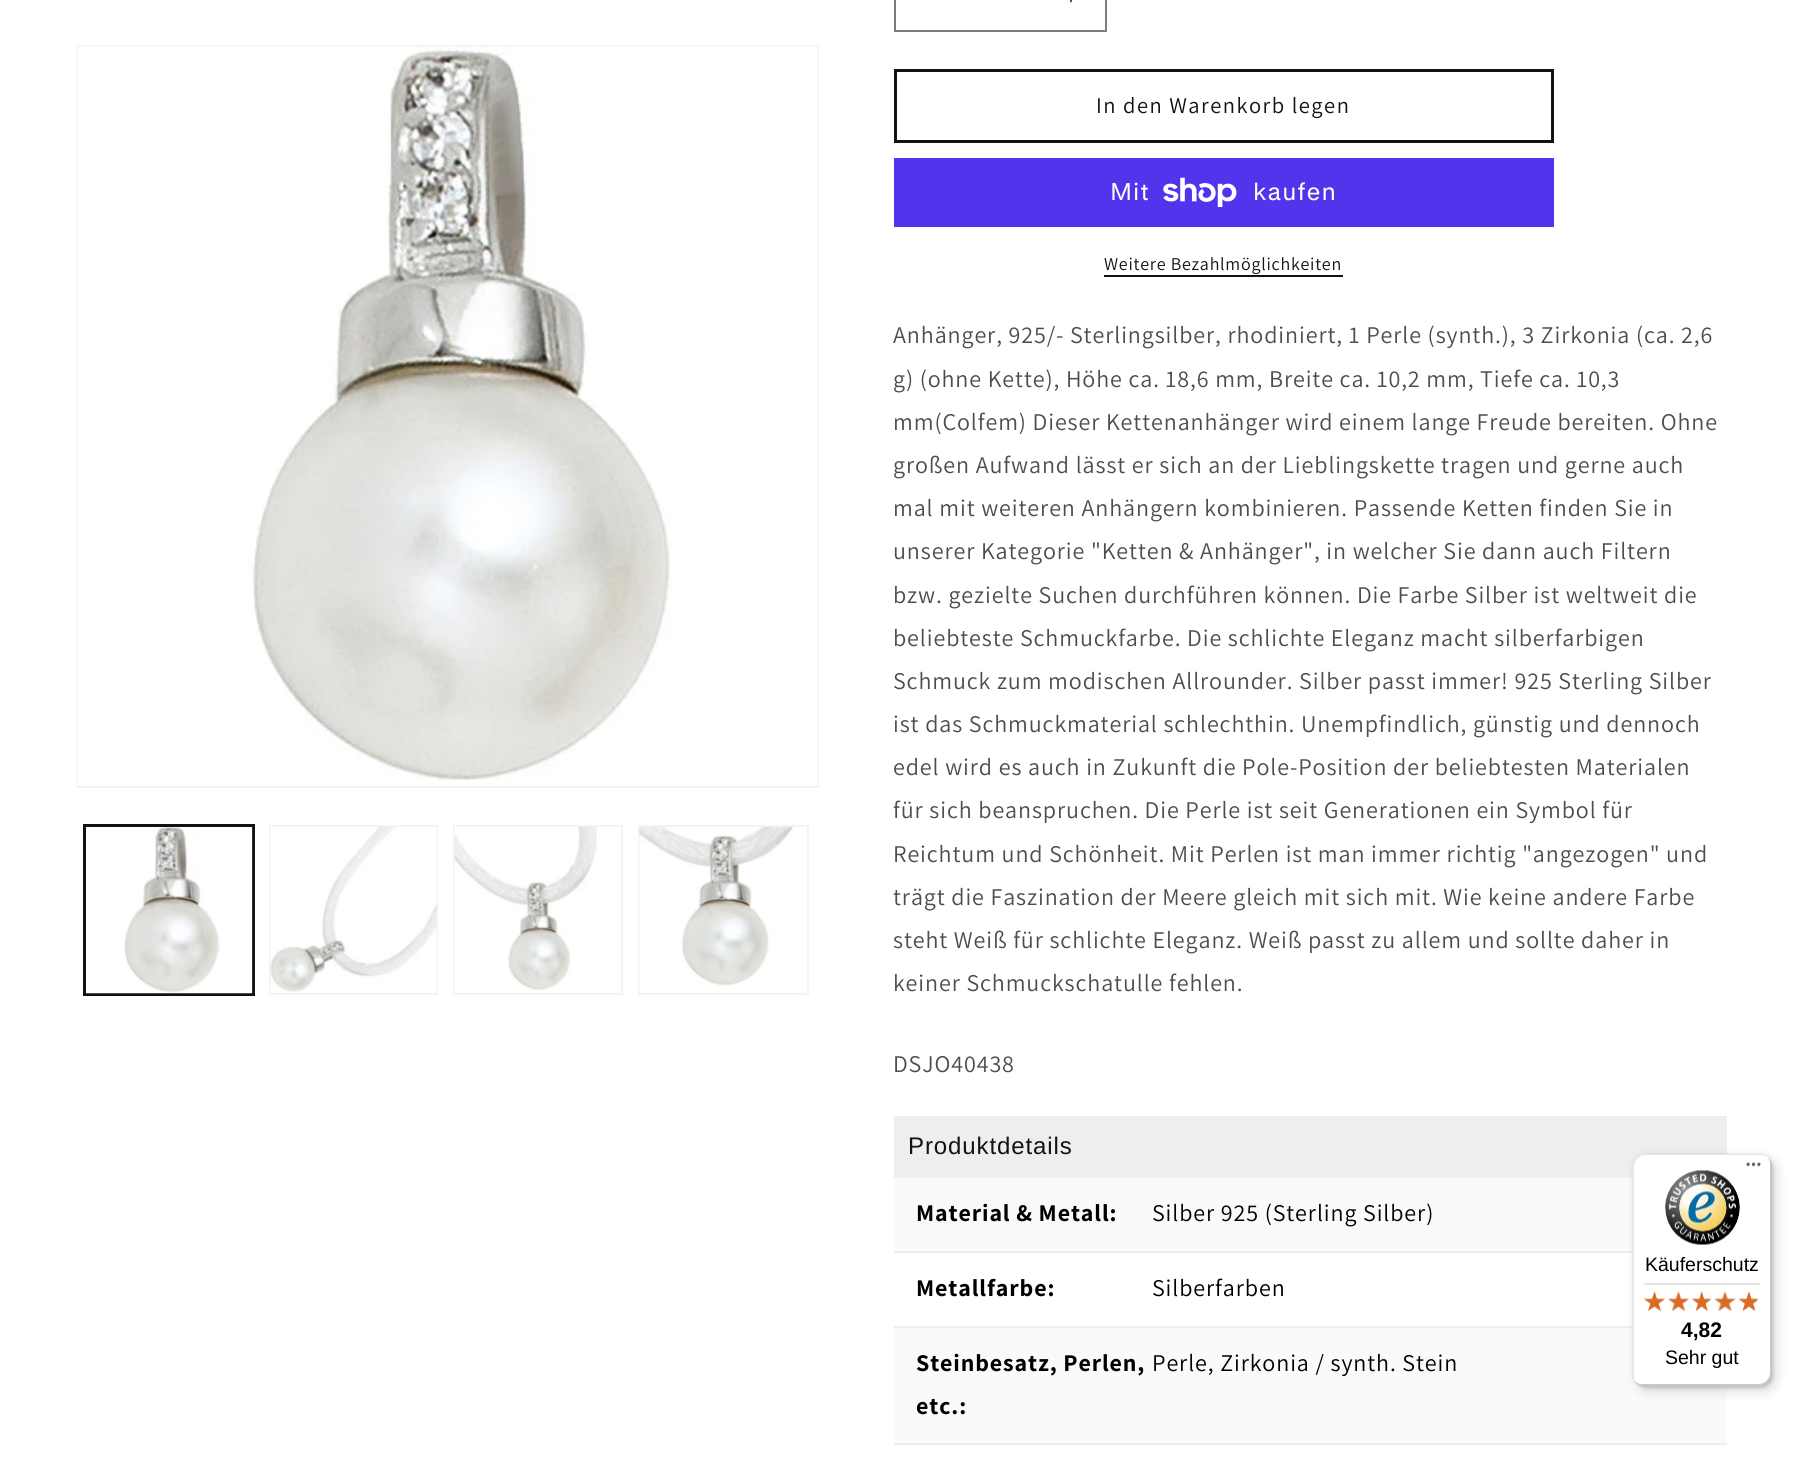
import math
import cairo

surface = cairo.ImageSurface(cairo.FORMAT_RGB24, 1801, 1466)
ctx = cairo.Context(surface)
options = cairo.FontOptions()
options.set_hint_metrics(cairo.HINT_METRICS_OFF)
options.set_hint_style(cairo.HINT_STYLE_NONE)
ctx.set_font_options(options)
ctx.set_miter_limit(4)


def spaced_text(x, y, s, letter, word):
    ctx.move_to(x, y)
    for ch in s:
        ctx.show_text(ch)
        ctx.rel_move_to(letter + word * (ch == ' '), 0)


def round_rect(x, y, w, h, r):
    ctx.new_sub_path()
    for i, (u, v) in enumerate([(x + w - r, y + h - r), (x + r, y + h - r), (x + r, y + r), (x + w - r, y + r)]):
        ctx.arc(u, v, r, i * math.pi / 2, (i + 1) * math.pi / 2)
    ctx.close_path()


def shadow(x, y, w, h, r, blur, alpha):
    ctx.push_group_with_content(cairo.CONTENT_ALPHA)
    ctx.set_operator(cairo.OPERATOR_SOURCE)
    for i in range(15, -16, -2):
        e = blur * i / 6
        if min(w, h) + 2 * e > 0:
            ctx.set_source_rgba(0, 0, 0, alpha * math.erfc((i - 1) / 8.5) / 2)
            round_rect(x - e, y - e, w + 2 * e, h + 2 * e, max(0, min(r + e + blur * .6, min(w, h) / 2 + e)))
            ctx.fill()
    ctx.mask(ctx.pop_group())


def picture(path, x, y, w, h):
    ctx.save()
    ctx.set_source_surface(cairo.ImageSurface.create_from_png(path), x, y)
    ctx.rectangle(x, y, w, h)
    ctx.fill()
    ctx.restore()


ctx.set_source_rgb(1, 1, 1)
ctx.paint()
ctx.rectangle(78, 46, 740, 741)
ctx.set_source_rgb(0.953, 0.953, 0.953)
ctx.stroke()
picture("img1.png", 78, 46, 740, 740)
ctx.rectangle(84, 825, 170, 170)
ctx.set_source_rgb(0.071, 0.071, 0.071)
ctx.stroke()
ctx.rectangle(85, 826, 168, 168)
ctx.stroke()
picture("img2.png", 86, 827, 167, 167)
ctx.rectangle(270, 826, 167, 168)
ctx.set_source_rgb(0.953, 0.953, 0.953)
ctx.stroke()
picture("img3.png", 270, 827, 167, 166)
ctx.rectangle(454, 826, 168, 168)
ctx.stroke()
picture("img4.png", 454, 827, 143, 165)
ctx.rectangle(639, 826, 169, 168)
ctx.stroke()
picture("img5.png", 639, 827, 154, 166)
picture("img6.png", 1070, 0, 2, 3)
ctx.rectangle(895, -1, 211, 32)
ctx.set_source_rgb(0.49, 0.49, 0.49)
ctx.stroke()
ctx.rectangle(895.5, 70.5, 657, 71)
ctx.set_source_rgb(0.071, 0.071, 0.071)
ctx.set_line_width(3)
ctx.stroke()
ctx.select_font_face("Assistant")
ctx.set_font_size(22.5)
spaced_text(1096, 113, "In den Warenkorb legen", 1.5, 0)
ctx.set_source_rgb(0.329, 0.2, 0.922)
ctx.rectangle(894, 158, 660, 69)
ctx.fill()
ctx.select_font_face("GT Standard")
ctx.set_font_size(24)
ctx.set_source_rgb(1, 1, 1)
spaced_text(1110, 200, "Mit", 0.9, 0)
picture("img7.png", 1163, 177, 74, 30)
spaced_text(1253, 200, "kaufen", 0.9, 0)
ctx.select_font_face("Assistant")
ctx.set_font_size(18)
ctx.set_source_rgb(0.071, 0.071, 0.071)
spaced_text(1104, 270, "Weitere Bezahlmöglichkeiten", 0.75, 0)
ctx.rectangle(1104, 275, 239, 2)
ctx.fill()
ctx.set_font_size(24)
ctx.set_source_rgb(0.302, 0.302, 0.302)
spaced_text(893, 343, "Anhänger, 925/- Sterlingsilber, rhodiniert, 1 Perle (synth.), 3 Zirkonia (ca. 2,6", 0.9, 0)
spaced_text(893, 387, "g) (ohne Kette), Höhe ca. 18,6 mm, Breite ca. 10,2 mm, Tiefe ca. 10,3", 0.9, 0)
spaced_text(893, 430, "mm(Colfem) Dieser Kettenanhänger wird einem lange Freude bereiten. Ohne", 0.9, 0)
spaced_text(893, 473, "großen Aufwand lässt er sich an der Lieblingskette tragen und gerne auch", 0.9, 0)
spaced_text(893, 516, "mal mit weiteren Anhängern kombinieren. Passende Ketten finden Sie in", 0.9, 0)
spaced_text(893, 559, "unserer Kategorie \"Ketten & Anhänger\", in welcher Sie dann auch Filtern", 0.9, 0)
spaced_text(893, 603, "bzw. gezielte Suchen durchführen können. Die Farbe Silber ist weltweit die", 0.9, 0)
spaced_text(893, 646, "beliebteste Schmuckfarbe. Die schlichte Eleganz macht silberfarbigen", 0.9, 0)
spaced_text(893, 689, "Schmuck zum modischen Allrounder. Silber passt immer! 925 Sterling Silber", 0.9, 0)
spaced_text(893, 732, "ist das Schmuckmaterial schlechthin. Unempfindlich, günstig und dennoch", 0.9, 0)
spaced_text(893, 775, "edel wird es auch in Zukunft die Pole-Position der beliebtesten Materialen", 0.9, 0)
spaced_text(893, 818, "für sich beanspruchen. Die Perle ist seit Generationen ein Symbol für", 0.9, 0)
spaced_text(893, 862, "Reichtum und Schönheit. Mit Perlen ist man immer richtig \"angezogen\" und", 0.9, 0)
spaced_text(893, 905, "trägt die Faszination der Meere gleich mit sich mit. Wie keine andere Farbe", 0.9, 0)
spaced_text(893, 948, "steht Weiß für schlichte Eleganz. Weiß passt zu allem und sollte daher in", 0.9, 0)
spaced_text(893, 991, "keiner Schmuckschatulle fehlen.", 0.9, 0)
spaced_text(893, 1072, "DSJO40438", 0.9, 0)
ctx.set_source_rgb(0.933, 0.933, 0.933)
ctx.rectangle(894, 1116, 833, 62)
ctx.fill()
ctx.select_font_face("Liberation Sans")
ctx.set_source_rgb(0.071, 0.071, 0.071)
spaced_text(908, 1154, "Produktdetails", 0.9, 0)
ctx.set_source_rgb(0.976, 0.98, 0.984)
ctx.rectangle(894, 1178, 738, 73)
ctx.fill()
ctx.set_source_rgb(0.933, 0.933, 0.933)
ctx.rectangle(894, 1251, 738, 2)
ctx.fill()
ctx.select_font_face("Assistant", cairo.FONT_SLANT_NORMAL, cairo.FONT_WEIGHT_BOLD)
ctx.set_source_rgb(0, 0, 0)
spaced_text(916, 1221, "Material & Metall:", 0.9, 0)
ctx.select_font_face("Assistant")
spaced_text(1152, 1221, "Silber 925 (Sterling Silber)", 0.9, 0)
ctx.set_source_rgb(0.933, 0.933, 0.933)
ctx.rectangle(894, 1326, 738, 2)
ctx.fill()
ctx.select_font_face("Assistant", cairo.FONT_SLANT_NORMAL, cairo.FONT_WEIGHT_BOLD)
ctx.set_source_rgb(0, 0, 0)
spaced_text(916, 1296, "Metallfarbe:", 0.9, 0)
ctx.select_font_face("Assistant")
spaced_text(1152, 1296, "Silberfarben", 0.9, 0)
ctx.set_source_rgb(0.976, 0.98, 0.984)
ctx.rectangle(894, 1328, 833, 115)
ctx.fill()
ctx.set_source_rgb(0.933, 0.933, 0.933)
ctx.rectangle(894, 1443, 833, 2)
ctx.fill()
ctx.select_font_face("Assistant", cairo.FONT_SLANT_NORMAL, cairo.FONT_WEIGHT_BOLD)
ctx.set_source_rgb(0, 0, 0)
spaced_text(916, 1371, "Steinbesatz, Perlen,", 0.9, 0)
spaced_text(916, 1414, "etc.:", 0.9, 0)
ctx.select_font_face("Assistant")
spaced_text(1152, 1371, "Perle, Zirkonia / synth. Stein", 0.9, 0)
ctx.set_source_rgb(0, 0, 0)
shadow(1637, 1158, 139, 233, 12, 6, 0.15)
shadow(1634, 1155, 139, 233, 12, 1.5, 0.15)
ctx.set_source_rgb(1, 1, 1)
round_rect(1632, 1154, 140, 232, 12)
ctx.fill()
ctx.set_source_rgba(0, 0, 0, 0.1)
ctx.new_path()
ctx.move_to(1646, 1155)
ctx.line_to(1761, 1155)
ctx.curve_to(1764, 1155, 1766, 1156, 1768, 1157)
ctx.curve_to(1766, 1155, 1763, 1154, 1760, 1154)
ctx.line_to(1644, 1154)
ctx.curve_to(1637, 1154, 1632, 1159, 1632, 1166)
ctx.line_to(1632, 1374)
ctx.curve_to(1632, 1378, 1634, 1381, 1637, 1384)
ctx.curve_to(1635, 1381, 1634, 1379, 1634, 1376)
ctx.line_to(1634, 1167)
ctx.curve_to(1634, 1160, 1639, 1155, 1646, 1155)
ctx.close_path()
ctx.fill()
ctx.set_source_rgba(0, 0, 0, 0.2)
ctx.new_path()
ctx.move_to(1634, 1381)
ctx.curve_to(1637, 1384, 1640, 1386, 1644, 1386)
ctx.line_to(1760, 1386)
ctx.curve_to(1767, 1386, 1772, 1381, 1772, 1374)
ctx.line_to(1772, 1166)
ctx.curve_to(1772, 1162, 1770, 1159, 1768, 1157)
ctx.curve_to(1769, 1159, 1770, 1161, 1770, 1164)
ctx.line_to(1770, 1372)
ctx.curve_to(1770, 1379, 1765, 1384, 1758, 1384)
ctx.line_to(1642, 1384)
ctx.curve_to(1639, 1384, 1637, 1383, 1634, 1381)
ctx.close_path()
ctx.fill()
ctx.set_source_rgba(0.196, 0.196, 0.196, 0.2)
ctx.new_path()
ctx.move_to(1636, 1383)
ctx.curve_to(1638, 1385, 1641, 1386, 1644, 1386)
ctx.line_to(1760, 1386)
ctx.curve_to(1767, 1386, 1772, 1381, 1772, 1374)
ctx.line_to(1772, 1166)
ctx.curve_to(1772, 1162, 1770, 1159, 1768, 1157)
ctx.curve_to(1770, 1159, 1771, 1162, 1771, 1165)
ctx.line_to(1771, 1373)
ctx.curve_to(1771, 1380, 1765, 1385, 1759, 1385)
ctx.line_to(1643, 1385)
ctx.curve_to(1640, 1385, 1638, 1384, 1636, 1383)
ctx.close_path()
ctx.fill()
ctx.set_source_rgba(1, 1, 1, 0.3)
ctx.new_path()
ctx.move_to(1635, 1382)
ctx.curve_to(1637, 1384, 1640, 1386, 1644, 1386)
ctx.line_to(1760, 1386)
ctx.curve_to(1767, 1386, 1772, 1381, 1772, 1374)
ctx.line_to(1772, 1166)
ctx.curve_to(1772, 1162, 1770, 1159, 1768, 1157)
ctx.curve_to(1770, 1159, 1771, 1162, 1771, 1165)
ctx.line_to(1771, 1373)
ctx.curve_to(1771, 1380, 1765, 1385, 1759, 1385)
ctx.line_to(1643, 1385)
ctx.curve_to(1640, 1385, 1637, 1384, 1635, 1382)
ctx.close_path()
ctx.fill()
picture("img8.png", 1746, 1162, 15, 5)
picture("img9.png", 1665, 1170, 75, 75)
ctx.select_font_face("Liberation Sans")
ctx.set_font_size(19.5)
ctx.set_source_rgb(0, 0, 0)
ctx.move_to(1645, 1271)
ctx.show_text("Käuferschutz")
ctx.set_source_rgb(0.898, 0.898, 0.898)
ctx.rectangle(1644, 1283, 116, 2)
ctx.fill()
picture("img10.png", 1644, 1291, 21, 20)
picture("img11.png", 1668, 1292, 21, 19)
picture("img12.png", 1692, 1291, 19, 20)
picture("img13.png", 1715, 1292, 20, 19)
picture("img14.png", 1739, 1291, 20, 20)
picture("img15.png", 1644, 1291, 21, 20)
picture("img16.png", 1668, 1291, 21, 20)
picture("img17.png", 1692, 1291, 19, 20)
picture("img18.png", 1714, 1291, 22, 20)
picture("img19.png", 1739, 1291, 18, 20)
ctx.select_font_face("Liberation Sans", cairo.FONT_SLANT_NORMAL, cairo.FONT_WEIGHT_BOLD)
ctx.set_font_size(21)
ctx.set_source_rgb(0, 0, 0)
ctx.move_to(1681, 1337)
ctx.show_text("4,82")
ctx.select_font_face("Liberation Sans")
ctx.set_font_size(19.5)
ctx.move_to(1665, 1364)
ctx.show_text("Sehr gut")
surface.write_to_png("page.png")
